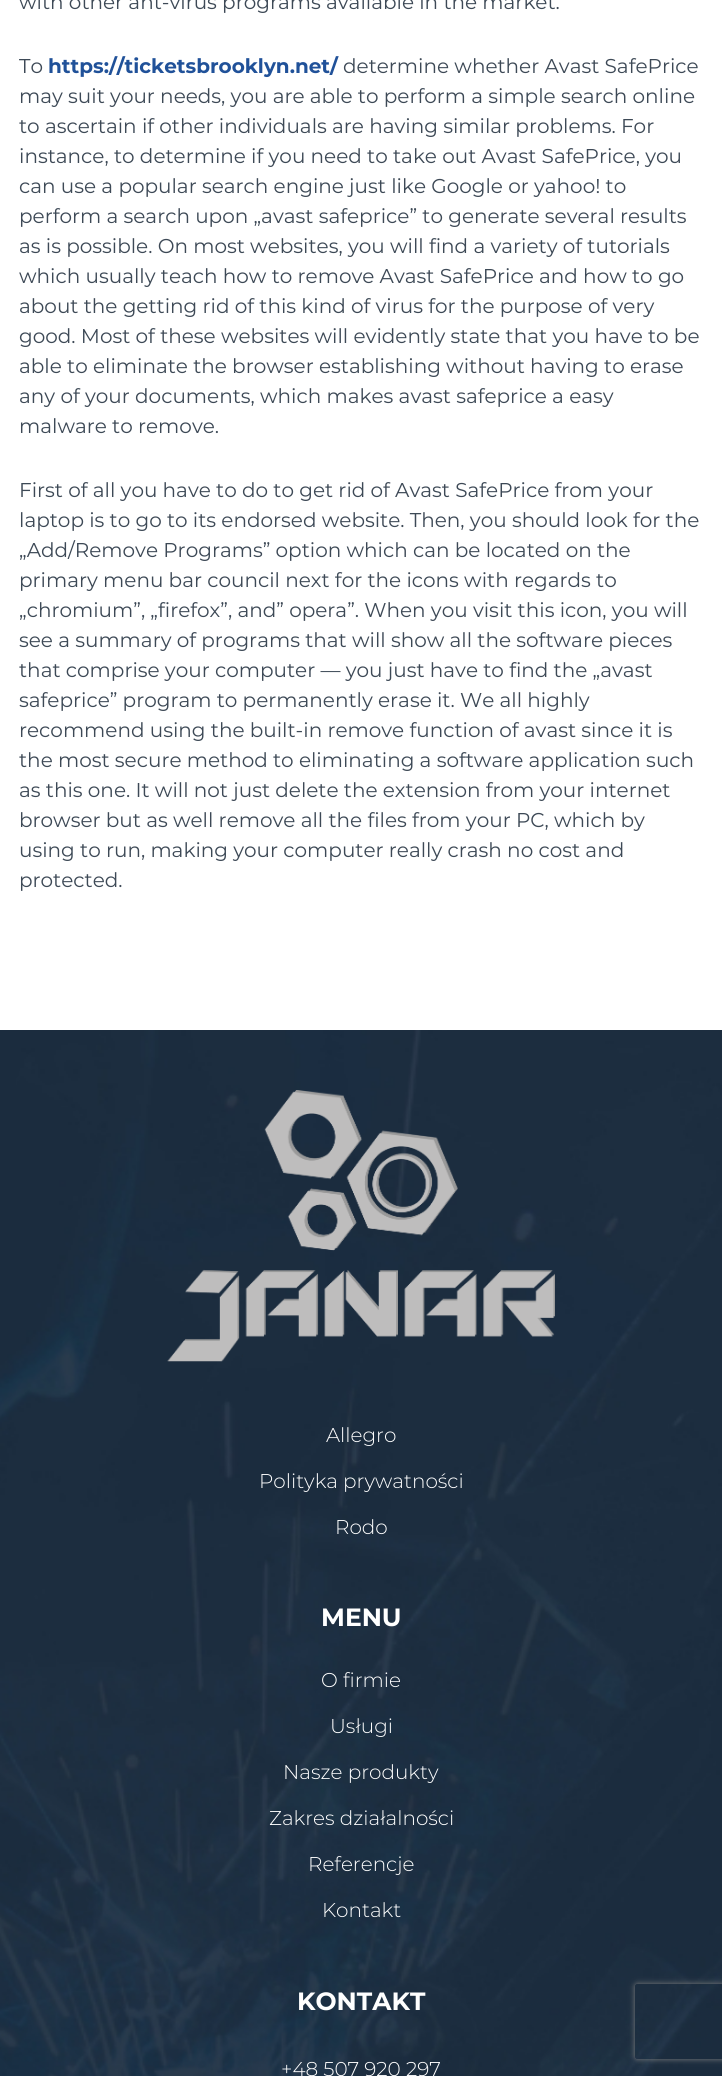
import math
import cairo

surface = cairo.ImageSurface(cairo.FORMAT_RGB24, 722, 2076)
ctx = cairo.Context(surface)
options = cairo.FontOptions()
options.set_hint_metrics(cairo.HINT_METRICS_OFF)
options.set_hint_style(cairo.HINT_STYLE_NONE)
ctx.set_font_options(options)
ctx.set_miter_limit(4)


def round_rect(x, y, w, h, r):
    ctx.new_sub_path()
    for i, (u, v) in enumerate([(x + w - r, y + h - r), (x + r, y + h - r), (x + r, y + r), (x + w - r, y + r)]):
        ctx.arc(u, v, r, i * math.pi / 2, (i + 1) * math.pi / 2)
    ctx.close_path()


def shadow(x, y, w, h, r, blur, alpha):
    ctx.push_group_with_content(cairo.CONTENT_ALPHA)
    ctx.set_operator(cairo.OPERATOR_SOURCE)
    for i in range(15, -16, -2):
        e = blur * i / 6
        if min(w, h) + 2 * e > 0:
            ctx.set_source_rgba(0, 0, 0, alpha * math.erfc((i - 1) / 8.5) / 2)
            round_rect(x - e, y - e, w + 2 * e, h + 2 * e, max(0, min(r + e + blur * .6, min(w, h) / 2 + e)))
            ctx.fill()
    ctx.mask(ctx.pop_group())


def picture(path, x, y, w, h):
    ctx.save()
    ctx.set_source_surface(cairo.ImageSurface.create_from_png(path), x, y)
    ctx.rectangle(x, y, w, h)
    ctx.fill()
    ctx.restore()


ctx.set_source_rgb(1, 1, 1)
ctx.paint()
ctx.select_font_face("Montserrat")
ctx.set_font_size(20)
ctx.set_source_rgb(0.239, 0.286, 0.337)
ctx.move_to(19, 9)
ctx.show_text("with other ant-virus programs available in the market.")
ctx.move_to(19, 73)
ctx.show_text("To")
ctx.select_font_face("Montserrat", cairo.FONT_SLANT_NORMAL, cairo.FONT_WEIGHT_BOLD)
ctx.set_source_rgb(0.125, 0.318, 0.6)
ctx.move_to(48, 73)
ctx.show_text("https://ticketsbrooklyn.net/")
ctx.select_font_face("Montserrat")
ctx.set_source_rgb(0.239, 0.286, 0.337)
ctx.move_to(343, 73)
ctx.show_text("determine whether Avast SafePrice")
ctx.move_to(19, 103)
ctx.show_text("may suit your needs, you are able to perform a simple search online")
ctx.move_to(19, 133)
ctx.show_text("to ascertain if other individuals are having similar problems. For")
ctx.move_to(19, 163)
ctx.show_text("instance, to determine if you need to take out Avast SafePrice, you")
ctx.move_to(19, 193)
ctx.show_text("can use a popular search engine just like Google or yahoo! to")
ctx.move_to(19, 223)
ctx.show_text("perform a search upon „avast safeprice” to generate several results")
ctx.move_to(19, 253)
ctx.show_text("as is possible. On most websites, you will find a variety of tutorials")
ctx.move_to(19, 283)
ctx.show_text("which usually teach how to remove Avast SafePrice and how to go")
ctx.move_to(19, 313)
ctx.show_text("about the getting rid of this kind of virus for the purpose of very")
ctx.move_to(19, 343)
ctx.show_text("good. Most of these websites will evidently state that you have to be")
ctx.move_to(19, 373)
ctx.show_text("able to eliminate the browser establishing without having to erase")
ctx.move_to(19, 403)
ctx.show_text("any of your documents, which makes avast safeprice a easy")
ctx.move_to(19, 433)
ctx.show_text("malware to remove.")
ctx.move_to(19, 497)
ctx.show_text("First of all you have to do to get rid of Avast SafePrice from your")
ctx.move_to(19, 527)
ctx.show_text("laptop is to go to its endorsed website. Then, you should look for the")
ctx.move_to(19, 557)
ctx.show_text("„Add/Remove Programs” option which can be located on the")
ctx.move_to(19, 587)
ctx.show_text("primary menu bar council next for the icons with regards to")
ctx.move_to(19, 617)
ctx.show_text("„chromium”, „firefox”, and” opera”. When you visit this icon, you will")
ctx.move_to(19, 647)
ctx.show_text("see a summary of programs that will show all the software pieces")
ctx.move_to(19, 677)
ctx.show_text("that comprise your computer — you just have to find the „avast")
ctx.move_to(19, 707)
ctx.show_text("safeprice” program to permanently erase it. We all highly")
ctx.move_to(19, 737)
ctx.show_text("recommend using the built-in remove function of avast since it is")
ctx.move_to(19, 767)
ctx.show_text("the most secure method to eliminating a software application such")
ctx.move_to(19, 797)
ctx.show_text("as this one. It will not just delete the extension from your internet")
ctx.move_to(19, 827)
ctx.show_text("browser but as well remove all the files from your PC, which by")
ctx.move_to(19, 857)
ctx.show_text("using to run, making your computer really crash no cost and")
ctx.move_to(19, 887)
ctx.show_text("protected.")
picture("img1.png", 0, 1030, 722, 1046)
picture("img2.png", 167, 1090, 388, 272)
ctx.select_font_face("Montserrat Light")
ctx.set_source_rgb(1, 1, 1)
ctx.move_to(326, 1442)
ctx.show_text("Allegro")
ctx.move_to(259, 1488)
ctx.show_text("Polityka prywatności")
ctx.move_to(335, 1534)
ctx.show_text("Rodo")
ctx.select_font_face("Montserrat", cairo.FONT_SLANT_NORMAL, cairo.FONT_WEIGHT_BOLD)
ctx.set_font_size(25)
ctx.move_to(321, 1626)
ctx.show_text("MENU")
ctx.select_font_face("Montserrat Light")
ctx.set_font_size(20)
ctx.move_to(321, 1687)
ctx.show_text("O firmie")
ctx.move_to(330, 1733)
ctx.show_text("Usługi")
ctx.move_to(283, 1779)
ctx.show_text("Nasze produkty")
ctx.move_to(269, 1825)
ctx.show_text("Zakres działalności")
ctx.move_to(308, 1871)
ctx.show_text("Referencje")
ctx.move_to(322, 1917)
ctx.show_text("Kontakt")
ctx.select_font_face("Montserrat", cairo.FONT_SLANT_NORMAL, cairo.FONT_WEIGHT_BOLD)
ctx.set_font_size(25)
ctx.move_to(297, 2010)
ctx.show_text("KONTAKT")
ctx.select_font_face("Montserrat Light")
ctx.set_font_size(20)
ctx.move_to(281, 2076)
ctx.show_text("+48 507 920 297")
ctx.save()
ctx.set_fill_rule(cairo.FILL_RULE_EVEN_ODD)
ctx.new_path()
ctx.move_to(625, 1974)
ctx.line_to(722, 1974)
ctx.line_to(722, 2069)
ctx.line_to(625, 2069)
ctx.close_path()
ctx.move_to(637.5, 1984)
ctx.line_to(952.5, 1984)
ctx.curve_to(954, 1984, 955, 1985, 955, 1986.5)
ctx.line_to(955, 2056.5)
ctx.curve_to(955, 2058, 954, 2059, 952.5, 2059)
ctx.line_to(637.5, 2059)
ctx.curve_to(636, 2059, 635, 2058, 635, 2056.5)
ctx.line_to(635, 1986.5)
ctx.curve_to(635, 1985, 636, 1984, 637.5, 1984)
ctx.close_path()
ctx.clip()
ctx.set_source_rgb(0.502, 0.502, 0.502)
shadow(635, 1984, 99, 75, 2.5, 3, 1)
ctx.restore()
surface.write_to_png("page.png")
